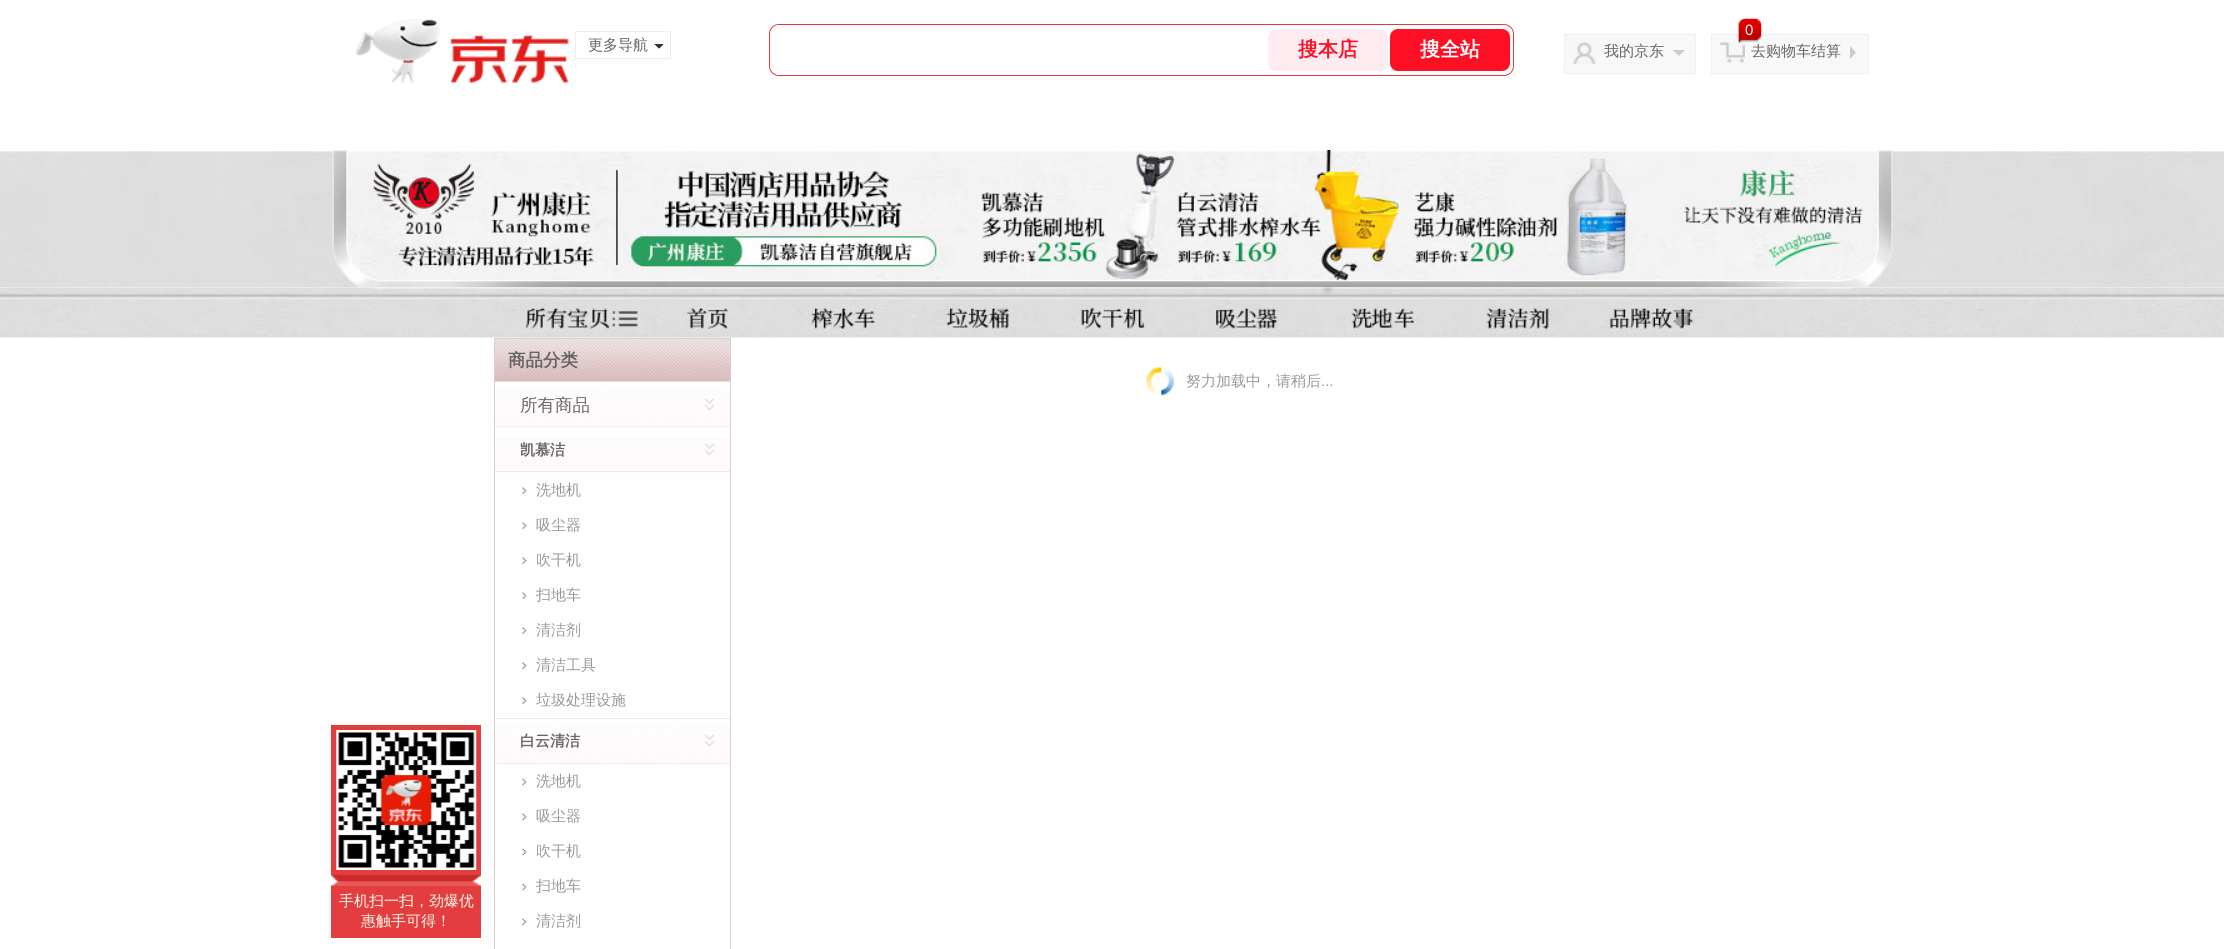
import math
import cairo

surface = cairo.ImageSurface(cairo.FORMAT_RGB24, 2224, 949)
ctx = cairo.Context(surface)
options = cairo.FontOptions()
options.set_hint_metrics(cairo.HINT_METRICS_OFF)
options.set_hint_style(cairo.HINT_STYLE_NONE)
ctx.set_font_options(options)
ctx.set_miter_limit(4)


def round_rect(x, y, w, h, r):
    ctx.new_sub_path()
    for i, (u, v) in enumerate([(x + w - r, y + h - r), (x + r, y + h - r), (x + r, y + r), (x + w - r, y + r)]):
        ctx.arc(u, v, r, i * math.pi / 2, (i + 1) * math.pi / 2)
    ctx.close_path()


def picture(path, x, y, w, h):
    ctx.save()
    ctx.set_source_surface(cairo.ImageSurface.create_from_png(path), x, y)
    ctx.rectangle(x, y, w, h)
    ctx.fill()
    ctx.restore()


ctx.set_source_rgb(1, 1, 1)
ctx.paint()
picture("img1.png", 356, 19, 213, 64)
ctx.rectangle(575.5, 31.5, 95, 27)
ctx.set_source_rgb(0.933, 0.933, 0.933)
ctx.set_line_width(1)
ctx.stroke()
ctx.select_font_face("WenQuanYi Zen Hei Medium")
ctx.set_font_size(15)
ctx.set_source_rgb(0.4, 0.4, 0.4)
ctx.move_to(588, 50)
ctx.show_text("更多导航")
ctx.set_source_rgb(0.2, 0.2, 0.2)
ctx.new_path()
ctx.move_to(654, 44)
ctx.line_to(664, 44)
ctx.line_to(659, 49)
ctx.close_path()
ctx.fill()
ctx.set_source_rgb(1, 1, 1)
ctx.new_path()
ctx.move_to(664, 44)
ctx.line_to(664, 54)
ctx.line_to(659, 49)
ctx.close_path()
ctx.move_to(654, 54)
ctx.line_to(654, 44)
ctx.line_to(659, 49)
ctx.close_path()
ctx.fill()
round_rect(769.5, 24.5, 744, 51, 9.5)
ctx.set_source_rgb(0.894, 0.224, 0.235)
ctx.stroke()
ctx.set_source_rgb(1, 1, 1)
ctx.new_path()
ctx.move_to(780, 25)
ctx.line_to(1270, 25)
ctx.line_to(1270, 75)
ctx.line_to(780, 75)
ctx.curve_to(774.5, 75, 770, 70.5, 770, 65)
ctx.line_to(770, 35)
ctx.curve_to(770, 29.5, 774.5, 25, 780, 25)
ctx.close_path()
ctx.fill()
ctx.set_source_rgb(1, 0.922, 0.945)
round_rect(1268, 29, 120, 42, 8)
ctx.fill()
ctx.select_font_face("WenQuanYi Zen Hei", cairo.FONT_SLANT_NORMAL, cairo.FONT_WEIGHT_BOLD)
ctx.set_font_size(20)
ctx.set_source_rgb(1, 0.059, 0.137)
ctx.move_to(1298, 56)
ctx.show_text("搜本店")
round_rect(1390, 29, 120, 42, 8)
ctx.fill()
ctx.set_source_rgb(1, 1, 1)
ctx.move_to(1420, 56)
ctx.show_text("搜全站")
ctx.set_source_rgb(0.969, 0.969, 0.969)
ctx.rectangle(1565, 35, 130, 38)
ctx.fill()
picture("img2.png", 1563, 42, 33, 26)
ctx.rectangle(1564.5, 34.5, 131, 39)
ctx.set_source_rgb(0.937, 0.937, 0.937)
ctx.stroke()
ctx.select_font_face("WenQuanYi Zen Hei Medium")
ctx.set_font_size(15)
ctx.set_source_rgb(0.4, 0.4, 0.4)
ctx.move_to(1604, 56)
ctx.show_text("我的京东")
ctx.set_source_rgb(0.8, 0.8, 0.8)
ctx.new_path()
ctx.move_to(1672.5, 50)
ctx.line_to(1685, 50)
ctx.line_to(1679, 56)
ctx.close_path()
ctx.fill()
ctx.set_source_rgb(0.969, 0.969, 0.969)
ctx.rectangle(1712, 35, 156, 38)
ctx.fill()
picture("img3.png", 1720, 42, 25, 21)
ctx.rectangle(1711.5, 34.5, 157, 39)
ctx.set_source_rgb(0.937, 0.937, 0.937)
ctx.stroke()
ctx.set_source_rgb(0.4, 0.4, 0.4)
ctx.move_to(1751, 56)
ctx.show_text("去购物车结算")
picture("img4.png", 1737, 18, 25, 26)
picture("img5.png", 1745, 18, 17, 25)
ctx.select_font_face("Liberation Sans")
ctx.set_source_rgb(1, 1, 1)
ctx.move_to(1745, 35)
ctx.show_text("0")
ctx.set_source_rgb(0.8, 0.8, 0.8)
ctx.new_path()
ctx.move_to(1850, 59)
ctx.line_to(1850, 46)
ctx.line_to(1856, 52.5)
ctx.close_path()
ctx.fill()
ctx.set_source_rgb(0.894, 0.239, 0.247)
ctx.rectangle(331, 725, 150, 150)
ctx.fill()
picture("img6.png", 336, 730, 141, 140)
picture("img7.png", 331, 875, 151, 12)
ctx.rectangle(331, 886, 150, 52)
ctx.fill()
ctx.select_font_face("WenQuanYi Zen Hei Medium")
ctx.set_source_rgb(1, 0.984, 0.933)
ctx.move_to(339, 906)
ctx.show_text("手机扫一扫，劲爆优")
ctx.move_to(361, 926)
ctx.show_text("惠触手可得！")
picture("img8.png", 0, 150, 2224, 138)
picture("img9.png", 0, 287, 2224, 51)
ctx.rectangle(494.5, 338.5, 236, 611)
ctx.set_source_rgb(0.867, 0.804, 0.804)
ctx.stroke()
ctx.set_source_rgb(0.941, 0.91, 0.91)
ctx.rectangle(495, 381, 235, 1)
ctx.fill()
picture("img10.png", 495, 339, 235, 43)
ctx.select_font_face("WenQuanYi Zen Hei", cairo.FONT_SLANT_NORMAL, cairo.FONT_WEIGHT_BOLD)
ctx.set_font_size(17.5)
ctx.set_source_rgb(0.4, 0.4, 0.4)
ctx.move_to(508, 366)
ctx.show_text("商品分类")
ctx.set_source_rgb(0.941, 0.91, 0.91)
ctx.rectangle(495, 426, 235, 1)
ctx.fill()
picture("img11.png", 495, 389, 235, 38)
ctx.select_font_face("WenQuanYi Zen Hei Medium")
ctx.set_source_rgb(0.4, 0.4, 0.4)
ctx.move_to(520, 411)
ctx.show_text("所有商品")
picture("img12.png", 705, 398, 9, 13)
picture("img13.png", 495, 434, 235, 37)
ctx.set_source_rgb(0.941, 0.91, 0.91)
ctx.rectangle(495, 471, 235, 1)
ctx.fill()
ctx.select_font_face("WenQuanYi Zen Hei", cairo.FONT_SLANT_NORMAL, cairo.FONT_WEIGHT_BOLD)
ctx.set_font_size(15)
ctx.set_source_rgb(0.4, 0.4, 0.4)
ctx.move_to(520, 455)
ctx.show_text("凯慕洁")
picture("img14.png", 705, 443, 9, 13)
picture("img15.png", 522, 487, 5, 7)
ctx.select_font_face("WenQuanYi Zen Hei Medium")
ctx.set_source_rgb(0.6, 0.6, 0.6)
ctx.move_to(536, 495)
ctx.show_text("洗地机")
picture("img15.png", 522, 522, 5, 7)
ctx.move_to(536, 530)
ctx.show_text("吸尘器")
picture("img15.png", 522, 557, 5, 7)
ctx.move_to(536, 565)
ctx.show_text("吹干机")
picture("img16.png", 522, 592, 5, 7)
ctx.move_to(536, 600)
ctx.show_text("扫地车")
picture("img15.png", 522, 627, 5, 7)
ctx.move_to(536, 635)
ctx.show_text("清洁剂")
picture("img15.png", 522, 662, 5, 7)
ctx.move_to(536, 670)
ctx.show_text("清洁工具")
picture("img15.png", 522, 697, 5, 7)
ctx.move_to(536, 705)
ctx.show_text("垃圾处理设施")
ctx.set_source_rgb(0.941, 0.91, 0.91)
ctx.rectangle(495, 718, 235, 1)
ctx.fill()
picture("img17.png", 495, 724, 235, 39)
ctx.rectangle(495, 763, 235, 1)
ctx.fill()
ctx.select_font_face("WenQuanYi Zen Hei", cairo.FONT_SLANT_NORMAL, cairo.FONT_WEIGHT_BOLD)
ctx.set_source_rgb(0.4, 0.4, 0.4)
ctx.move_to(520, 746)
ctx.show_text("白云清洁")
picture("img18.png", 705, 735, 9, 12)
picture("img19.png", 522, 778, 5, 8)
ctx.select_font_face("WenQuanYi Zen Hei Medium")
ctx.set_source_rgb(0.6, 0.6, 0.6)
ctx.move_to(536, 786)
ctx.show_text("洗地机")
picture("img19.png", 522, 813, 5, 8)
ctx.move_to(536, 821)
ctx.show_text("吸尘器")
picture("img19.png", 522, 848, 5, 8)
ctx.move_to(536, 856)
ctx.show_text("吹干机")
picture("img19.png", 522, 883, 5, 8)
ctx.move_to(536, 891)
ctx.show_text("扫地车")
picture("img19.png", 522, 918, 5, 8)
ctx.move_to(536, 926)
ctx.show_text("清洁剂")
picture("img20.png", 1146, 367, 28, 29)
ctx.move_to(1186, 386)
ctx.show_text("努力加载中，请稍后")
ctx.select_font_face("Liberation Sans")
ctx.move_to(1321, 386)
ctx.show_text("...")
surface.write_to_png("page.png")
